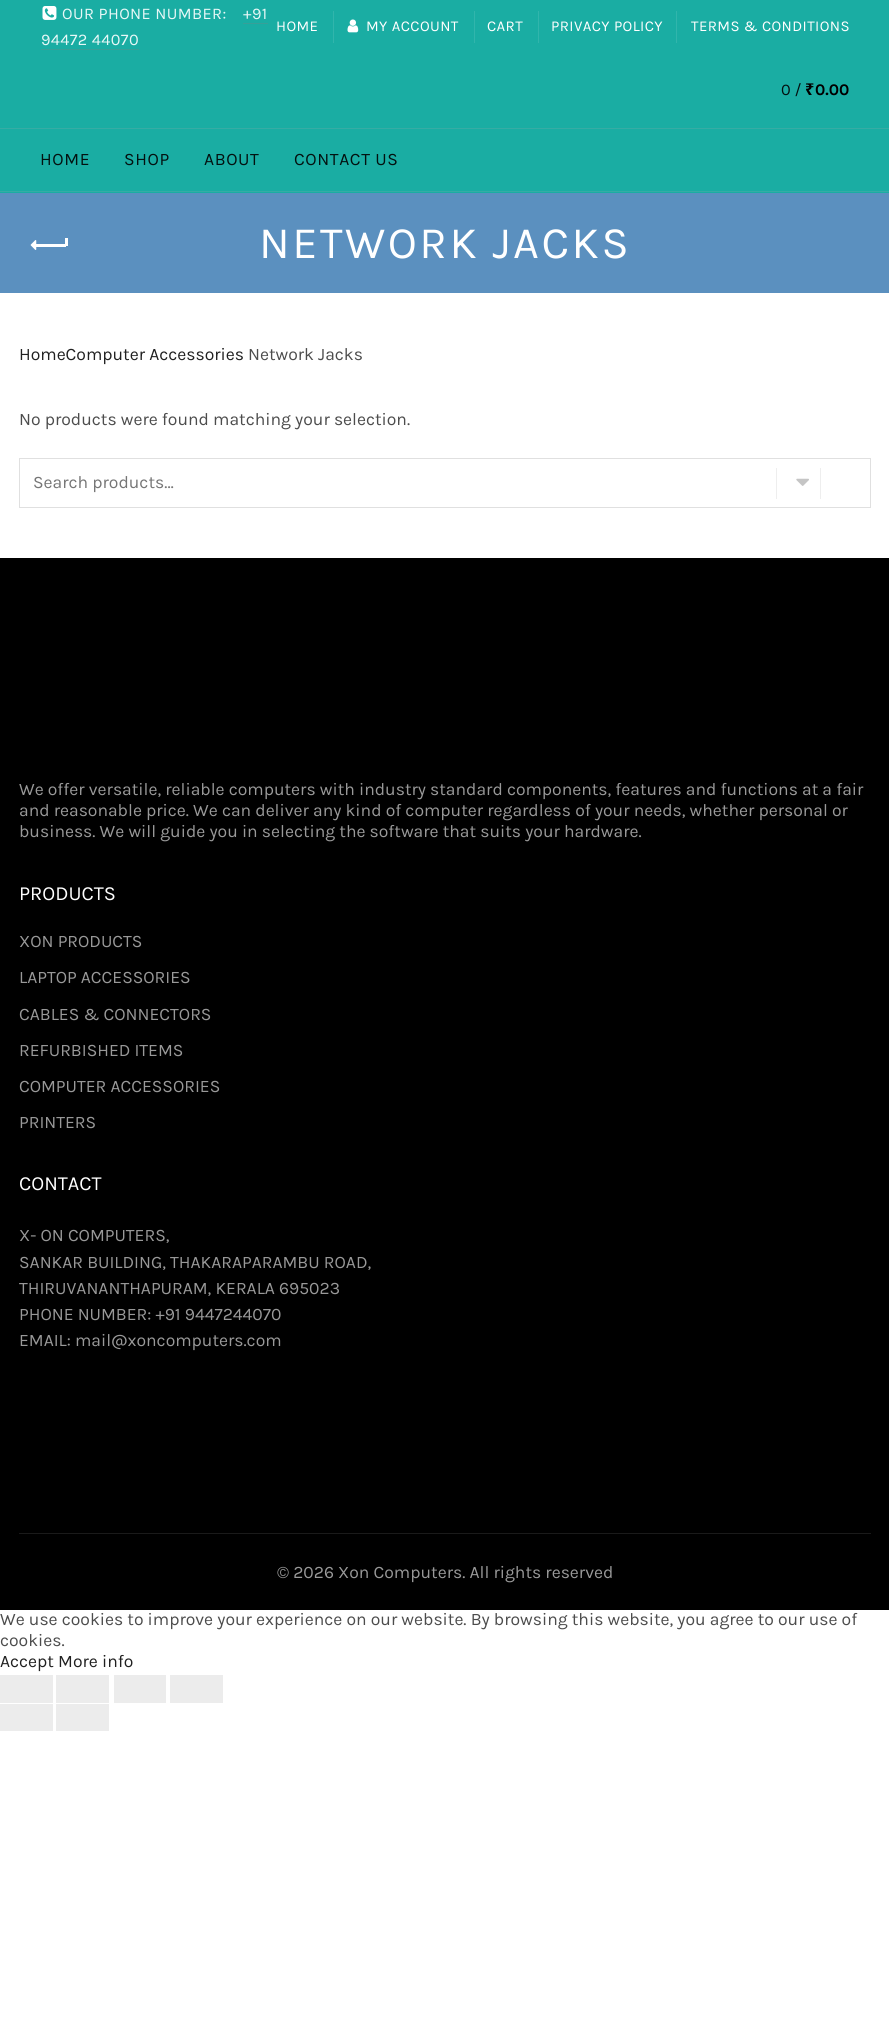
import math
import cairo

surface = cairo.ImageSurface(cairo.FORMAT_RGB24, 889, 2039)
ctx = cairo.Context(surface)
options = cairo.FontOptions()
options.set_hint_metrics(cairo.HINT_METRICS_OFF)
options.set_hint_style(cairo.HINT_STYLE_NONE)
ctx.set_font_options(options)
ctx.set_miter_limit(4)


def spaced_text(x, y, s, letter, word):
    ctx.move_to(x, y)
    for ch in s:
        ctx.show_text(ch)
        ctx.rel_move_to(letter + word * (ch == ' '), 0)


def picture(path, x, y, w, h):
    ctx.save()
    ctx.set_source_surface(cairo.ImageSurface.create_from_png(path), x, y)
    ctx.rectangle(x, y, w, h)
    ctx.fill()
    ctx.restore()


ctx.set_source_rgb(1, 1, 1)
ctx.paint()
ctx.set_source_rgb(0.102, 0.678, 0.639)
ctx.rectangle(0, 0, 889, 193)
ctx.fill()
picture("img1.png", 42, 6, 15, 14)
ctx.select_font_face("Karla")
ctx.set_font_size(16.25)
ctx.set_source_rgb(0.91, 0.969, 0.965)
spaced_text(62, 19, "OUR PHONE NUMBER:", 0.4, 0)
spaced_text(243, 19, "+91", 0.4, 0)
ctx.set_source_rgb(0.22, 0.624, 0.596)
ctx.rectangle(243, 23, 25, 1)
ctx.fill()
ctx.set_source_rgb(0.91, 0.969, 0.965)
spaced_text(41, 45, "94472 44070", 0.4, 0)
ctx.set_source_rgb(0.22, 0.624, 0.596)
ctx.rectangle(41, 49, 98, 1)
ctx.fill()
ctx.set_font_size(15)
ctx.set_source_rgb(1, 1, 1)
spaced_text(276, 31, "HOME", 0.4, 0)
ctx.set_source_rgb(0.192, 0.71, 0.675)
ctx.rectangle(333, 11, 1, 32)
ctx.fill()
picture("img2.png", 347, 19, 12, 14)
ctx.set_source_rgb(1, 1, 1)
spaced_text(366, 31, "MY ACCOUNT", 0.4, 0)
ctx.set_source_rgb(0.192, 0.71, 0.675)
ctx.rectangle(474, 11, 1, 32)
ctx.fill()
ctx.set_source_rgb(1, 1, 1)
spaced_text(487, 31, "CART", 0.4, 0)
ctx.set_source_rgb(0.192, 0.71, 0.675)
ctx.rectangle(538, 11, 1, 32)
ctx.fill()
ctx.set_source_rgb(1, 1, 1)
spaced_text(551, 31, "PRIVACY POLICY", 0.4, 0)
ctx.set_source_rgb(0.192, 0.71, 0.675)
ctx.rectangle(676, 11, 1, 32)
ctx.fill()
ctx.set_source_rgb(1, 1, 1)
spaced_text(691, 31, "TERMS & CONDITIONS", 0.4, 0)
ctx.set_font_size(16.25)
ctx.set_source_rgb(0.012, 0.067, 0.063)
ctx.move_to(781, 95)
ctx.show_text("0 /")
ctx.select_font_face("Noto Sans", cairo.FONT_SLANT_NORMAL, cairo.FONT_WEIGHT_BOLD)
ctx.set_source_rgb(0, 0, 0)
ctx.move_to(805, 95)
ctx.show_text("₹")
ctx.select_font_face("Karla", cairo.FONT_SLANT_NORMAL, cairo.FONT_WEIGHT_BOLD)
ctx.move_to(815, 95)
ctx.show_text("0.00")
ctx.set_source_rgb(0.212, 0.675, 0.643)
ctx.rectangle(0, 128, 889, 1)
ctx.fill()
ctx.rectangle(0, 191, 889, 1)
ctx.fill()
ctx.select_font_face("Karla")
ctx.set_font_size(17.5)
ctx.set_source_rgb(0.012, 0.067, 0.063)
spaced_text(40, 165, "HOME", 0.6, 0)
spaced_text(124, 165, "SHOP", 0.6, 0)
spaced_text(204, 165, "ABOUT", 0.6, 0)
spaced_text(294, 165, "CONTACT US", 0.6, 0)
ctx.set_source_rgb(0.357, 0.565, 0.749)
ctx.rectangle(0, 193, 889, 100)
ctx.fill()
ctx.set_source_rgb(1, 1, 1)
ctx.rectangle(35, 244, 31, 3)
ctx.fill()
picture("img3.png", 30, 240, 7, 10)
ctx.rectangle(65, 238, 3, 8)
ctx.fill()
ctx.set_font_size(45)
spaced_text(259, 258, "NETWORK JACKS", 2.5, 0)
ctx.set_font_size(17.5)
ctx.set_source_rgb(0.125, 0.125, 0.125)
ctx.move_to(19, 360)
ctx.show_text("HomeComputer Accessories")
ctx.set_source_rgb(0.298, 0.298, 0.298)
ctx.move_to(248, 360)
ctx.show_text("Network Jacks")
ctx.move_to(19, 425)
ctx.show_text("No products were found matching your selection.")
ctx.rectangle(19.5, 458.5, 851, 49)
ctx.set_source_rgb(0.878, 0.878, 0.878)
ctx.set_line_width(1)
ctx.stroke()
ctx.set_source_rgb(0.459, 0.459, 0.459)
ctx.move_to(33, 488)
ctx.show_text("Search products…")
ctx.set_source_rgb(0.933, 0.933, 0.933)
ctx.rectangle(776, 468, 1, 31)
ctx.fill()
picture("img4.png", 796, 478, 13, 8)
ctx.rectangle(820, 468, 1, 31)
ctx.fill()
ctx.set_source_rgb(0, 0, 0)
ctx.rectangle(0, 558, 889, 1052)
ctx.fill()
ctx.set_source_rgb(0.6, 0.6, 0.6)
ctx.move_to(19, 795)
ctx.show_text("We offer versatile, reliable computers with industry standard components, features and functions at a fair")
ctx.move_to(19, 816)
ctx.show_text("and reasonable price. We can deliver any kind of computer regardless of your needs, whether personal or")
ctx.move_to(19, 837)
ctx.show_text("business. We will guide you in selecting the software that suits your hardware.")
ctx.set_font_size(20)
ctx.set_source_rgb(1, 1, 1)
ctx.move_to(19, 900)
ctx.show_text("PRODUCTS")
ctx.set_font_size(17.5)
ctx.set_source_rgb(0.6, 0.6, 0.6)
ctx.move_to(19, 947)
ctx.show_text("XON PRODUCTS")
ctx.move_to(19, 983)
ctx.show_text("LAPTOP ACCESSORIES")
ctx.move_to(19, 1020)
ctx.show_text("CABLES & CONNECTORS")
ctx.move_to(19, 1056)
ctx.show_text("REFURBISHED ITEMS")
ctx.move_to(19, 1092)
ctx.show_text("COMPUTER ACCESSORIES")
ctx.move_to(19, 1128)
ctx.show_text("PRINTERS")
ctx.set_font_size(20)
ctx.set_source_rgb(1, 1, 1)
ctx.move_to(19, 1190)
ctx.show_text("CONTACT")
ctx.set_font_size(17.5)
ctx.set_source_rgb(0.6, 0.6, 0.6)
ctx.move_to(19, 1241)
ctx.show_text("X- ON COMPUTERS,")
ctx.move_to(19, 1268)
ctx.show_text("SANKAR BUILDING, THAKARAPARAMBU ROAD,")
ctx.move_to(19, 1294)
ctx.show_text("THIRUVANANTHAPURAM, KERALA 695023")
ctx.move_to(19, 1320)
ctx.show_text("PHONE NUMBER: +91 9447244070")
ctx.move_to(19, 1346)
ctx.show_text("EMAIL: mail@xoncomputers.com")
ctx.set_source_rgb(0.102, 0.102, 0.102)
ctx.rectangle(19, 1533, 852, 1)
ctx.fill()
ctx.set_source_rgb(0.6, 0.6, 0.6)
ctx.move_to(277, 1578)
ctx.show_text("© 2026 Xon Computers. All rights reserved")
ctx.set_source_rgb(0.298, 0.298, 0.298)
ctx.move_to(0, 1625)
ctx.show_text("We use cookies to improve your experience on our website. By browsing this website, you agree to our use of")
ctx.move_to(0, 1646)
ctx.show_text("cookies.")
ctx.set_source_rgb(0.125, 0.125, 0.125)
ctx.move_to(0, 1667)
ctx.show_text("Accept More info")
ctx.set_source_rgb(0.925, 0.925, 0.925)
ctx.rectangle(0, 1675, 53, 28)
ctx.fill()
ctx.rectangle(56, 1675, 53, 28)
ctx.fill()
ctx.rectangle(114, 1675, 52, 28)
ctx.fill()
ctx.rectangle(170, 1675, 53, 28)
ctx.fill()
ctx.rectangle(0, 1704, 53, 27)
ctx.fill()
ctx.rectangle(56, 1704, 53, 27)
ctx.fill()
surface.write_to_png("page.png")
